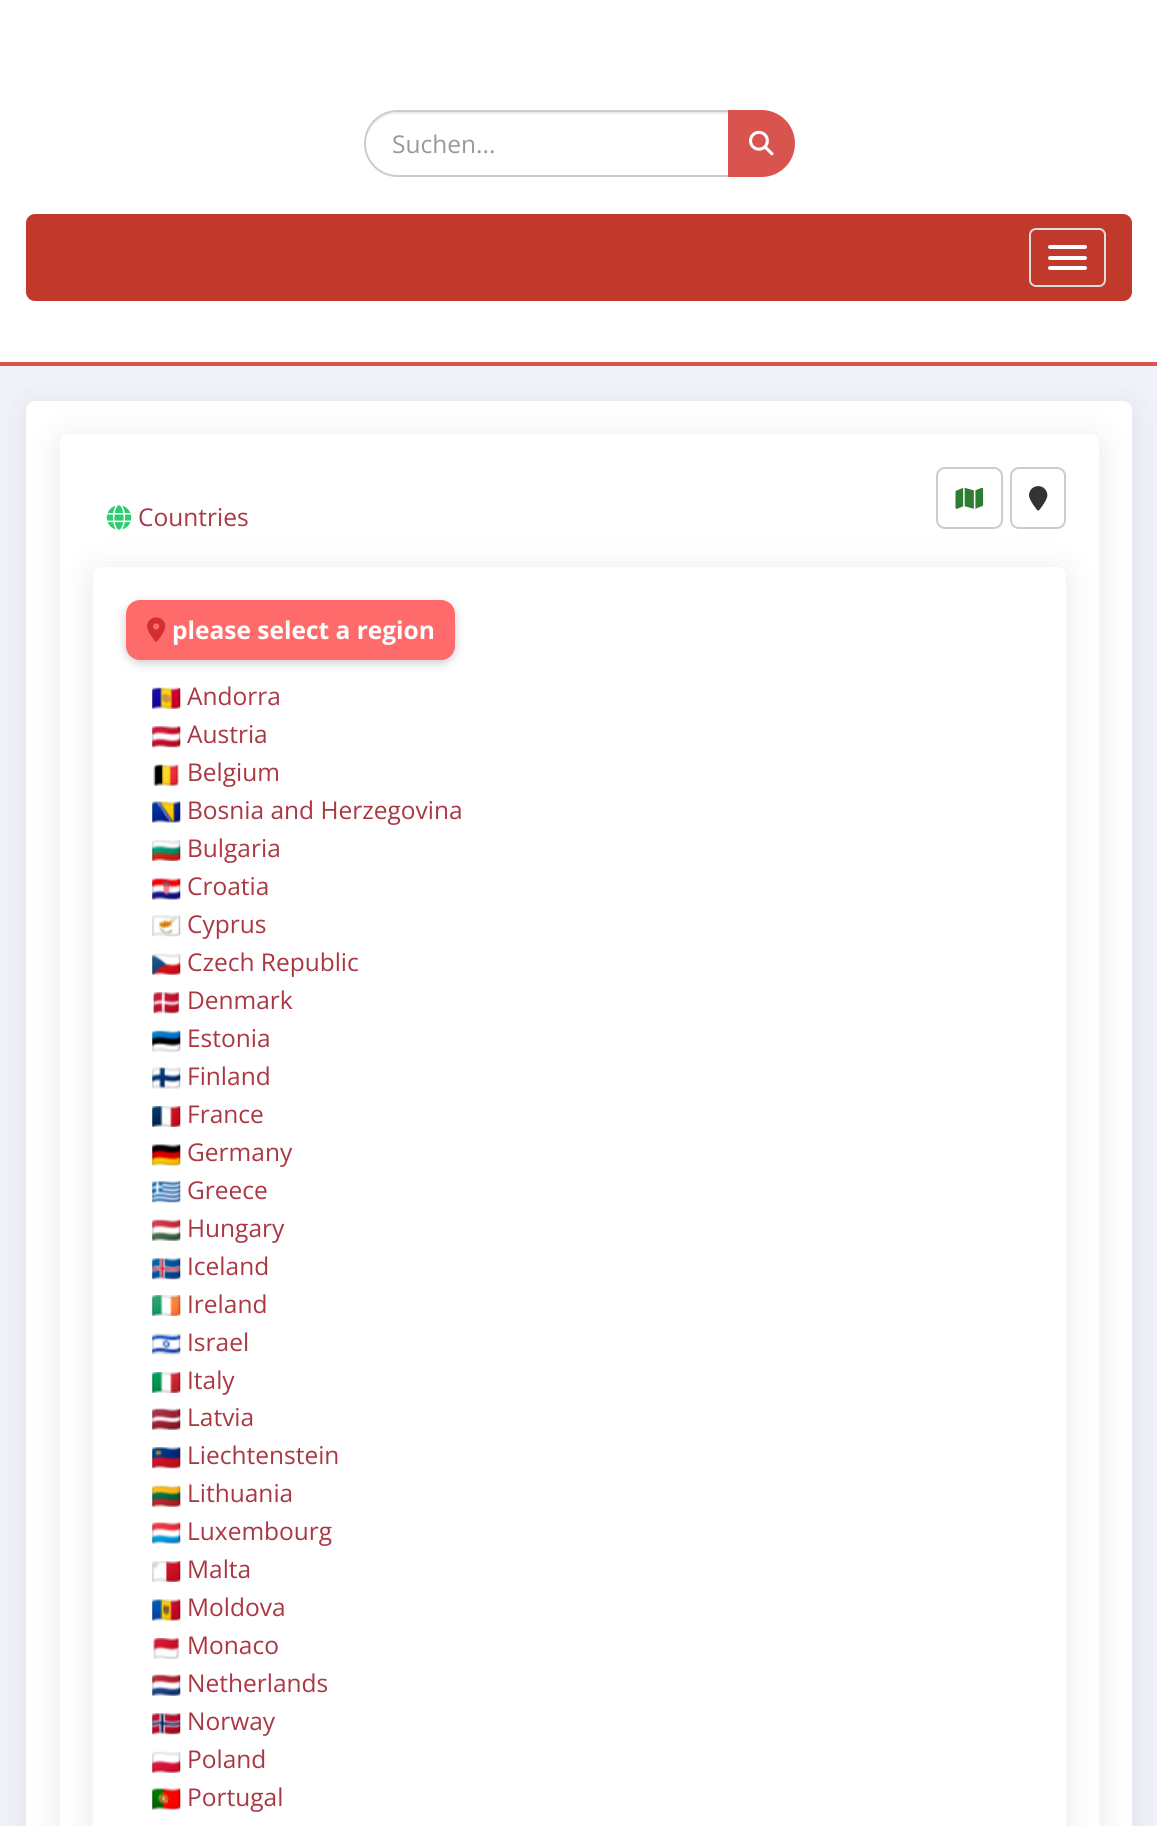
import math
import cairo

surface = cairo.ImageSurface(cairo.FORMAT_RGB24, 1157, 1826)
ctx = cairo.Context(surface)
options = cairo.FontOptions()
options.set_hint_metrics(cairo.HINT_METRICS_OFF)
options.set_hint_style(cairo.HINT_STYLE_NONE)
ctx.set_font_options(options)
ctx.set_miter_limit(4)


def round_rect(x, y, w, h, r):
    ctx.new_sub_path()
    for i, (u, v) in enumerate([(x + w - r, y + h - r), (x + r, y + h - r), (x + r, y + r), (x + w - r, y + r)]):
        ctx.arc(u, v, r, i * math.pi / 2, (i + 1) * math.pi / 2)
    ctx.close_path()


def shadow(x, y, w, h, r, blur, alpha):
    ctx.push_group_with_content(cairo.CONTENT_ALPHA)
    ctx.set_operator(cairo.OPERATOR_SOURCE)
    for i in range(15, -16, -2):
        e = blur * i / 6
        if min(w, h) + 2 * e > 0:
            ctx.set_source_rgba(0, 0, 0, alpha * math.erfc((i - 1) / 8.5) / 2)
            round_rect(x - e, y - e, w + 2 * e, h + 2 * e, max(0, min(r + e + blur * .6, min(w, h) / 2 + e)))
            ctx.fill()
    ctx.mask(ctx.pop_group())


def picture(path, x, y, w, h):
    ctx.save()
    ctx.set_source_surface(cairo.ImageSurface.create_from_png(path), x, y)
    ctx.rectangle(x, y, w, h)
    ctx.fill()
    ctx.restore()


ctx.set_source_rgb(0.949, 0.953, 0.98)
ctx.paint()
ctx.set_source_rgb(1, 1, 1)
ctx.rectangle(0, 0, 1157, 362)
ctx.fill()
ctx.set_source_rgb(0.851, 0.325, 0.31)
ctx.rectangle(0, 362, 1157, 4)
ctx.fill()
ctx.set_source_rgb(0.925, 0.925, 0.925)
ctx.new_path()
ctx.move_to(397, 114)
ctx.line_to(728, 114)
ctx.line_to(728, 112)
ctx.line_to(398, 112)
ctx.curve_to(380, 112, 366, 126, 366, 144)
ctx.curve_to(366, 128, 380, 114, 397, 114)
ctx.close_path()
ctx.fill()
ctx.new_path()
ctx.move_to(397.5, 111)
ctx.line_to(729, 111)
ctx.line_to(729, 176)
ctx.line_to(397.5, 176)
ctx.curve_to(379.5, 176, 365, 161.5, 365, 143.5)
ctx.curve_to(365, 125.5, 379.5, 111, 397.5, 111)
ctx.close_path()
ctx.set_source_rgb(0.8, 0.8, 0.8)
ctx.stroke()
ctx.select_font_face("Open Sans")
ctx.set_font_size(24.5)
ctx.set_source_rgb(0.6, 0.6, 0.6)
ctx.move_to(392, 153)
ctx.show_text("Suchen...")
ctx.set_source_rgb(0.851, 0.325, 0.31)
ctx.new_path()
ctx.move_to(728, 110)
ctx.line_to(761.5, 110)
ctx.curve_to(780, 110, 795, 125, 795, 143.5)
ctx.curve_to(795, 162, 780, 177, 761.5, 177)
ctx.line_to(728, 177)
ctx.close_path()
ctx.fill()
picture("img1.png", 749, 130, 25, 26)
ctx.set_source_rgb(0.753, 0.224, 0.169)
round_rect(26, 214, 1106, 87, 9)
ctx.fill()
round_rect(1030, 229, 75, 57, 6)
ctx.set_source_rgb(0.867, 0.867, 0.867)
ctx.stroke()
ctx.set_source_rgb(1, 1, 1)
round_rect(1048, 245, 39, 4, 2)
ctx.fill()
round_rect(1048, 256, 39, 4, 2)
ctx.fill()
round_rect(1048, 266, 39, 4, 2)
ctx.fill()
ctx.set_source_rgb(0.192, 0.208, 0.282)
shadow(25, 403, 1109, 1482, 11, 16, 0.1)
ctx.set_source_rgb(1, 1, 1)
round_rect(26, 401, 1106, 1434, 9)
ctx.fill()
ctx.save()
ctx.set_fill_rule(cairo.FILL_RULE_EVEN_ODD)
ctx.new_path()
ctx.move_to(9, 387)
ctx.line_to(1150, 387)
ctx.line_to(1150, 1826)
ctx.line_to(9, 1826)
ctx.close_path()
ctx.move_to(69, 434)
ctx.line_to(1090, 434)
ctx.curve_to(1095, 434, 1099, 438, 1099, 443)
ctx.line_to(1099, 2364)
ctx.curve_to(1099, 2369, 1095, 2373, 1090, 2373)
ctx.line_to(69, 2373)
ctx.curve_to(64, 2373, 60, 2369, 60, 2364)
ctx.line_to(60, 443)
ctx.curve_to(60, 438, 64, 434, 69, 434)
ctx.close_path()
ctx.clip()
ctx.set_source_rgb(0.192, 0.208, 0.282)
shadow(58, 436, 1043, 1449, 11, 16, 0.1)
ctx.restore()
ctx.set_source_rgb(0.192, 0.208, 0.282)
shadow(91, 569, 977, 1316, 11, 16, 0.1)
picture("img2.png", 106, 505, 26, 25)
ctx.set_source_rgb(0.671, 0.216, 0.263)
ctx.move_to(138, 526)
ctx.show_text("Countries")
round_rect(937, 468, 65, 60, 8)
ctx.set_source_rgb(0.8, 0.8, 0.8)
ctx.stroke()
picture("img3.png", 955, 487, 29, 22)
round_rect(1011, 468, 54, 60, 8)
ctx.stroke()
picture("img4.png", 1029, 486, 19, 25)
ctx.set_source_rgb(1, 1, 1)
round_rect(93, 567, 973, 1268, 9)
ctx.fill()
ctx.set_source_rgb(0, 0, 0)
shadow(126, 604, 329, 59, 14, 5, 0.2)
ctx.set_source_rgb(1, 0.42, 0.42)
round_rect(126, 600, 329, 60, 14)
ctx.fill()
picture("img5.png", 147, 617, 19, 25)
ctx.select_font_face("Open Sans", cairo.FONT_SLANT_NORMAL, cairo.FONT_WEIGHT_BOLD)
ctx.set_source_rgb(1, 1, 1)
ctx.move_to(172, 639)
ctx.show_text("please select a region")
picture("img6.png", 152, 687, 29, 22)
ctx.select_font_face("Open Sans")
ctx.set_source_rgb(0.671, 0.216, 0.263)
ctx.move_to(187, 705)
ctx.show_text("Andorra")
picture("img7.png", 152, 726, 29, 22)
ctx.move_to(187, 743)
ctx.show_text("Austria")
picture("img8.png", 153, 764, 26, 22)
ctx.move_to(187, 781)
ctx.show_text("Belgium")
picture("img9.png", 152, 801, 29, 22)
ctx.move_to(187, 819)
ctx.show_text("Bosnia and Herzegovina")
picture("img10.png", 152, 840, 29, 21)
ctx.move_to(187, 857)
ctx.show_text("Bulgaria")
picture("img11.png", 152, 878, 29, 22)
ctx.move_to(187, 895)
ctx.show_text("Croatia")
picture("img12.png", 152, 915, 29, 22)
ctx.move_to(187, 933)
ctx.show_text("Cyprus")
picture("img13.png", 152, 953, 29, 22)
ctx.move_to(187, 971)
ctx.show_text("Czech Republic")
picture("img14.png", 153, 992, 27, 22)
ctx.move_to(187, 1009)
ctx.show_text("Denmark")
picture("img15.png", 152, 1030, 29, 22)
ctx.move_to(187, 1047)
ctx.show_text("Estonia")
picture("img16.png", 152, 1067, 29, 22)
ctx.move_to(187, 1085)
ctx.show_text("Finland")
picture("img17.png", 152, 1106, 29, 21)
ctx.move_to(187, 1123)
ctx.show_text("France")
picture("img18.png", 152, 1144, 29, 22)
ctx.move_to(187, 1161)
ctx.show_text("Germany")
picture("img19.png", 152, 1181, 29, 22)
ctx.move_to(187, 1199)
ctx.show_text("Greece")
picture("img20.png", 152, 1219, 29, 22)
ctx.move_to(187, 1237)
ctx.show_text("Hungary")
picture("img21.png", 152, 1258, 29, 22)
ctx.move_to(187, 1275)
ctx.show_text("Iceland")
picture("img22.png", 152, 1295, 29, 21)
ctx.move_to(187, 1313)
ctx.show_text("Ireland")
picture("img23.png", 152, 1333, 29, 22)
ctx.move_to(187, 1351)
ctx.show_text("Israel")
picture("img24.png", 152, 1372, 29, 21)
ctx.move_to(187, 1389)
ctx.show_text("Italy")
picture("img25.png", 152, 1408, 29, 22)
ctx.move_to(187, 1426)
ctx.show_text("Latvia")
picture("img26.png", 152, 1447, 29, 22)
ctx.move_to(187, 1464)
ctx.show_text("Liechtenstein")
picture("img27.png", 152, 1485, 29, 22)
ctx.move_to(187, 1502)
ctx.show_text("Lithuania")
picture("img28.png", 152, 1522, 29, 22)
ctx.move_to(187, 1540)
ctx.show_text("Luxembourg")
picture("img29.png", 152, 1561, 29, 21)
ctx.move_to(187, 1578)
ctx.show_text("Malta")
picture("img30.png", 152, 1599, 29, 22)
ctx.move_to(187, 1616)
ctx.show_text("Moldova")
picture("img31.png", 153, 1638, 27, 21)
ctx.move_to(187, 1654)
ctx.show_text("Monaco")
picture("img32.png", 152, 1674, 29, 22)
ctx.move_to(187, 1692)
ctx.show_text("Netherlands")
picture("img33.png", 152, 1713, 29, 22)
ctx.move_to(187, 1730)
ctx.show_text("Norway")
picture("img34.png", 152, 1751, 29, 22)
ctx.move_to(187, 1768)
ctx.show_text("Poland")
picture("img35.png", 152, 1788, 29, 22)
ctx.move_to(187, 1806)
ctx.show_text("Portugal")
surface.write_to_png("page.png")
